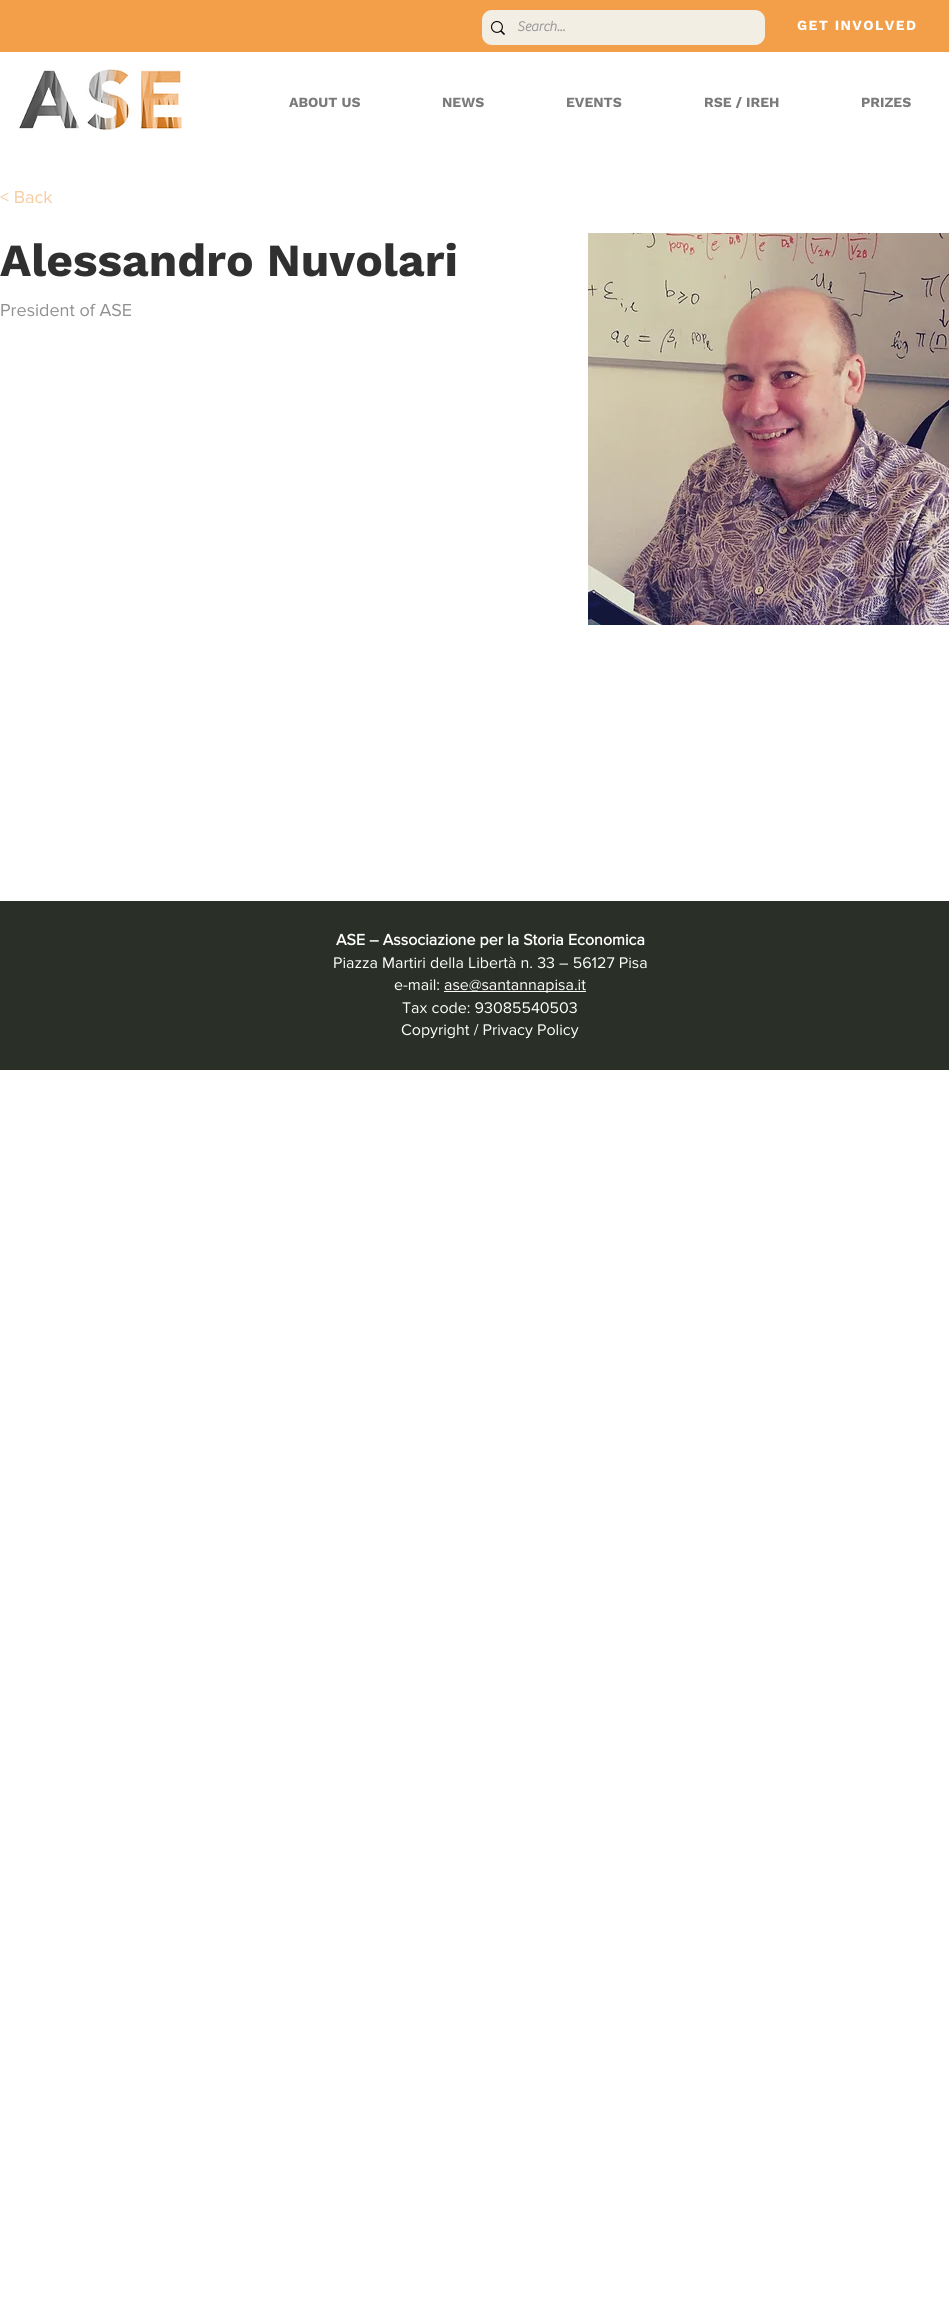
import math
import cairo

surface = cairo.ImageSurface(cairo.FORMAT_RGB24, 949, 2321)
ctx = cairo.Context(surface)
options = cairo.FontOptions()
options.set_hint_metrics(cairo.HINT_METRICS_OFF)
options.set_hint_style(cairo.HINT_STYLE_NONE)
ctx.set_font_options(options)
ctx.set_miter_limit(4)


def spaced_text(x, y, s, letter, word):
    ctx.move_to(x, y)
    for ch in s:
        ctx.show_text(ch)
        ctx.rel_move_to(letter + word * (ch == ' '), 0)


def round_rect(x, y, w, h, r):
    ctx.new_sub_path()
    for i, (u, v) in enumerate([(x + w - r, y + h - r), (x + r, y + h - r), (x + r, y + r), (x + w - r, y + r)]):
        ctx.arc(u, v, r, i * math.pi / 2, (i + 1) * math.pi / 2)
    ctx.close_path()


def picture(path, x, y, w, h):
    ctx.save()
    ctx.set_source_surface(cairo.ImageSurface.create_from_png(path), x, y)
    ctx.rectangle(x, y, w, h)
    ctx.fill()
    ctx.restore()


ctx.set_source_rgb(1, 1, 1)
ctx.paint()
ctx.set_source_rgb(0.953, 0.624, 0.286)
ctx.rectangle(0, 0, 949, 52)
ctx.fill()
ctx.set_source_rgb(0.949, 0.933, 0.894)
round_rect(482, 10, 283, 35, 10)
ctx.fill()
picture("img1.png", 491, 21, 14, 14)
ctx.select_font_face("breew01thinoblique", cairo.FONT_SLANT_NORMAL, cairo.FONT_WEIGHT_BOLD)
ctx.set_font_size(14)
ctx.set_source_rgb(0.6, 0.6, 0.6)
ctx.move_to(517, 31)
ctx.show_text("Search...")
ctx.select_font_face("Work Sans", cairo.FONT_SLANT_NORMAL, cairo.FONT_WEIGHT_BOLD)
ctx.set_source_rgb(1, 1, 1)
spaced_text(797, 30, "GET INVOLVED", 1.4, 0)
picture("img2.png", 19, 69, 163, 62)
ctx.set_source_rgb(0.478, 0.478, 0.478)
ctx.move_to(289, 107)
ctx.show_text("ABOUT US")
ctx.move_to(442, 107)
ctx.show_text("NEWS")
ctx.move_to(566, 107)
ctx.show_text("EVENTS")
ctx.move_to(704, 107)
ctx.show_text("RSE / IREH")
ctx.move_to(861, 107)
ctx.show_text("PRIZES")
ctx.select_font_face("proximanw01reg")
ctx.set_font_size(18)
ctx.set_source_rgb(0.969, 0.8, 0.631)
ctx.move_to(0, 203)
ctx.show_text("< Back")
ctx.select_font_face("Work Sans", cairo.FONT_SLANT_NORMAL, cairo.FONT_WEIGHT_BOLD)
ctx.set_font_size(46)
ctx.set_source_rgb(0.188, 0.188, 0.188)
ctx.move_to(0, 276)
ctx.show_text("Alessandro Nuvolari")
ctx.select_font_face("proximanw01reg")
ctx.set_font_size(18)
ctx.set_source_rgb(0.565, 0.565, 0.565)
ctx.move_to(0, 316)
ctx.show_text("President of ASE")
picture("img3.png", 588, 233, 361, 392)
ctx.set_source_rgb(0.165, 0.188, 0.153)
ctx.rectangle(0, 901, 949, 169)
ctx.fill()
ctx.select_font_face("proximanw01reg", cairo.FONT_SLANT_NORMAL, cairo.FONT_WEIGHT_BOLD)
ctx.set_font_size(16)
ctx.set_source_rgb(1, 1, 1)
ctx.move_to(336, 945)
ctx.show_text("ASE – Associazione per la Storia Economica")
ctx.select_font_face("proximanw01reg")
ctx.move_to(333, 968)
ctx.show_text("Piazza Martiri della Libertà n. 33 – 56127 Pisa")
ctx.move_to(394, 990)
ctx.show_text("e-mail:")
ctx.rectangle(444, 991, 142, 1)
ctx.fill()
ctx.move_to(444, 990)
ctx.show_text("ase@santannapisa.it")
ctx.move_to(402, 1013)
ctx.show_text("Tax code: 93085540503")
ctx.move_to(401, 1035)
ctx.show_text("Copyright / Privacy Policy")
surface.write_to_png("page.png")
